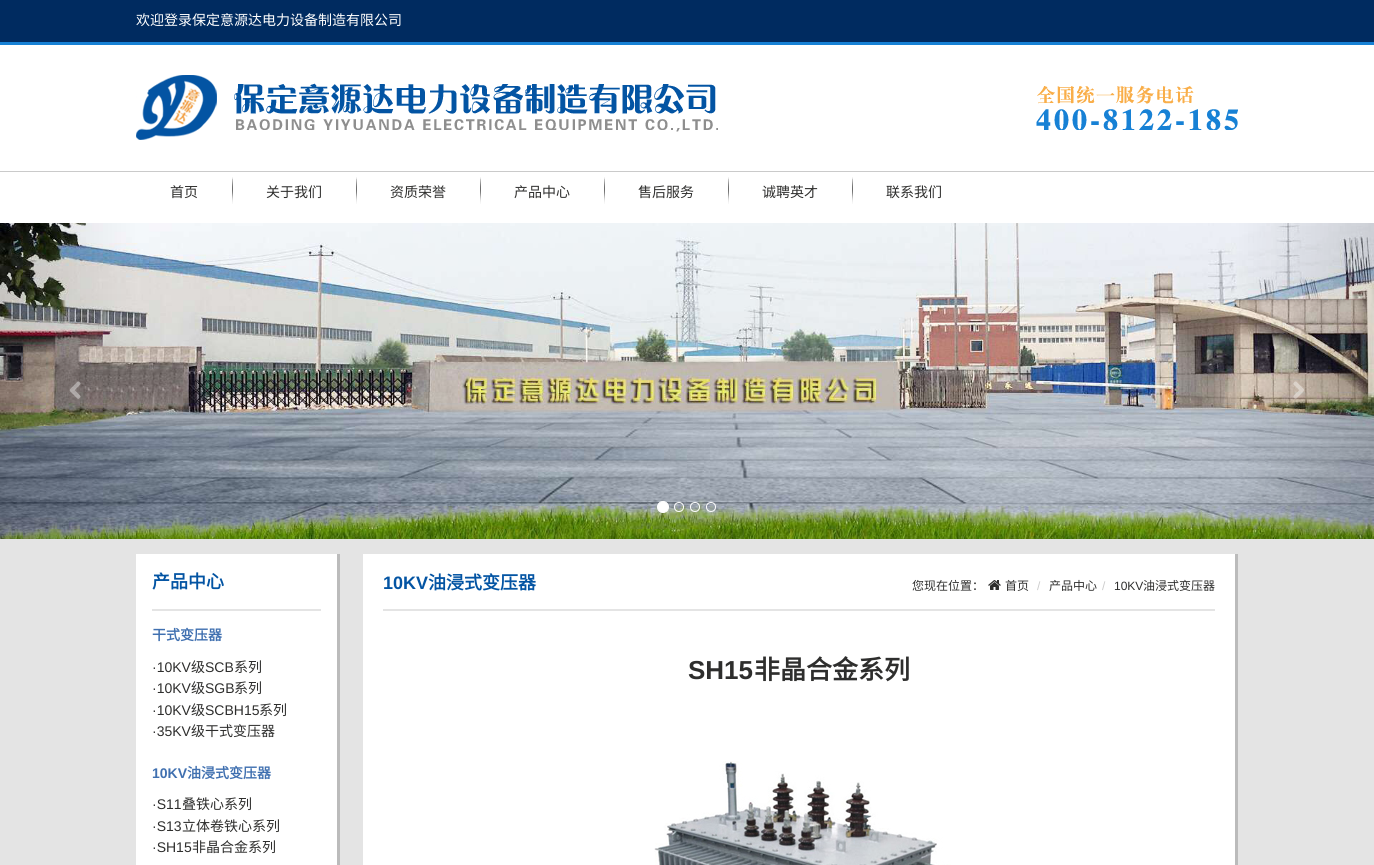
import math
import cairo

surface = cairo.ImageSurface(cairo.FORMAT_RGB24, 1374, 865)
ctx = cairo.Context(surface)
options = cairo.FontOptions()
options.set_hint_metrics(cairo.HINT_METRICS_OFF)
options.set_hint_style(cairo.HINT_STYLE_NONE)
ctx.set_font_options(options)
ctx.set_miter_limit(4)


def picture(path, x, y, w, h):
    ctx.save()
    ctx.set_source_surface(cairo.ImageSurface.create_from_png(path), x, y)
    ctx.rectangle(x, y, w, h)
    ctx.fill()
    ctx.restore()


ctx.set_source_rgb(1, 1, 1)
ctx.paint()
ctx.set_source_rgb(0, 0.169, 0.376)
ctx.rectangle(0, 0, 1374, 42)
ctx.fill()
ctx.set_source_rgb(0.09, 0.506, 0.835)
ctx.rectangle(0, 42, 1374, 3)
ctx.fill()
ctx.select_font_face("Noto Sans CJK SC")
ctx.set_font_size(14)
ctx.set_source_rgb(1, 1, 1)
ctx.move_to(136, 25)
ctx.show_text("欢迎登录保定意源达电力设备制造有限公司")
ctx.set_source_rgb(0.792, 0.792, 0.792)
ctx.rectangle(0, 171, 1374, 1)
ctx.fill()
picture("img1.png", 136, 75, 582, 65)
picture("img2.png", 1036, 85, 202, 45)
ctx.set_source_rgb(0.18, 0.18, 0.176)
ctx.move_to(170, 197)
ctx.show_text("首页")
picture("img3.png", 232, 177, 1, 27)
ctx.move_to(266, 197)
ctx.show_text("关于我们")
picture("img3.png", 356, 177, 1, 27)
ctx.move_to(390, 197)
ctx.show_text("资质荣誉")
picture("img3.png", 480, 177, 1, 27)
ctx.move_to(514, 197)
ctx.show_text("产品中心")
picture("img3.png", 604, 177, 1, 27)
ctx.move_to(638, 197)
ctx.show_text("售后服务")
picture("img3.png", 728, 177, 1, 27)
ctx.move_to(762, 197)
ctx.show_text("诚聘英才")
picture("img3.png", 852, 177, 1, 27)
ctx.move_to(886, 197)
ctx.show_text("联系我们")
picture("img4.png", 0, 223, 1374, 316)
picture("img5.png", 69, 381, 12, 18)
picture("img6.png", 1293, 381, 12, 18)
ctx.set_source_rgb(1, 1, 1)
ctx.arc(663, 507, 5.5, 0, 2 * math.pi)
ctx.fill_preserve()
ctx.set_line_width(1)
ctx.stroke()
ctx.arc(679, 507, 4.5, 0, 2 * math.pi)
ctx.stroke()
ctx.arc(695, 507, 4.5, 0, 2 * math.pi)
ctx.stroke()
ctx.arc(711, 507, 4.5, 0, 2 * math.pi)
ctx.stroke()
ctx.set_source_rgb(0.894, 0.894, 0.894)
ctx.rectangle(0, 539, 1374, 326)
ctx.fill()
ctx.set_source_rgb(1, 1, 1)
ctx.rectangle(136, 554, 201, 311)
ctx.fill()
ctx.set_source_rgb(0.733, 0.733, 0.733)
ctx.rectangle(337, 554, 3, 311)
ctx.fill()
ctx.set_source_rgb(0.894, 0.894, 0.894)
ctx.rectangle(152, 609, 169, 2)
ctx.fill()
ctx.select_font_face("Noto Sans CJK SC", cairo.FONT_SLANT_NORMAL, cairo.FONT_WEIGHT_BOLD)
ctx.set_font_size(18)
ctx.set_source_rgb(0.012, 0.329, 0.639)
ctx.move_to(152, 588)
ctx.show_text("产品中心")
ctx.set_font_size(14)
ctx.set_source_rgb(0.251, 0.439, 0.69)
ctx.move_to(152, 640)
ctx.show_text("干式变压器")
ctx.select_font_face("Liberation Sans")
ctx.set_source_rgb(0.18, 0.18, 0.176)
ctx.move_to(152, 672)
ctx.show_text("·10KV")
ctx.select_font_face("Noto Sans CJK SC")
ctx.move_to(191, 672)
ctx.show_text("级")
ctx.select_font_face("Liberation Sans")
ctx.move_to(205, 672)
ctx.show_text("SCB")
ctx.select_font_face("Noto Sans CJK SC")
ctx.move_to(234, 672)
ctx.show_text("系列")
ctx.select_font_face("Liberation Sans")
ctx.move_to(152, 693)
ctx.show_text("·10KV")
ctx.select_font_face("Noto Sans CJK SC")
ctx.move_to(191, 693)
ctx.show_text("级")
ctx.select_font_face("Liberation Sans")
ctx.move_to(205, 693)
ctx.show_text("SGB")
ctx.select_font_face("Noto Sans CJK SC")
ctx.move_to(234, 693)
ctx.show_text("系列")
ctx.select_font_face("Liberation Sans")
ctx.move_to(152, 715)
ctx.show_text("·10KV")
ctx.select_font_face("Noto Sans CJK SC")
ctx.move_to(191, 715)
ctx.show_text("级")
ctx.select_font_face("Liberation Sans")
ctx.move_to(205, 715)
ctx.show_text("SCBH15")
ctx.select_font_face("Noto Sans CJK SC")
ctx.move_to(259, 715)
ctx.show_text("系列")
ctx.select_font_face("Liberation Sans")
ctx.move_to(152, 736)
ctx.show_text("·35KV")
ctx.select_font_face("Noto Sans CJK SC")
ctx.move_to(191, 736)
ctx.show_text("级干式变压器")
ctx.select_font_face("Liberation Sans", cairo.FONT_SLANT_NORMAL, cairo.FONT_WEIGHT_BOLD)
ctx.set_source_rgb(0.251, 0.439, 0.69)
ctx.move_to(152, 778)
ctx.show_text("10KV")
ctx.select_font_face("Noto Sans CJK SC", cairo.FONT_SLANT_NORMAL, cairo.FONT_WEIGHT_BOLD)
ctx.move_to(187, 778)
ctx.show_text("油浸式变压器")
ctx.select_font_face("Liberation Sans")
ctx.set_source_rgb(0.18, 0.18, 0.176)
ctx.move_to(152, 809)
ctx.show_text("·S11")
ctx.select_font_face("Noto Sans CJK SC")
ctx.move_to(182, 809)
ctx.show_text("叠铁心系列")
ctx.select_font_face("Liberation Sans")
ctx.move_to(152, 831)
ctx.show_text("·S13")
ctx.select_font_face("Noto Sans CJK SC")
ctx.move_to(182, 831)
ctx.show_text("立体卷铁心系列")
ctx.select_font_face("Liberation Sans")
ctx.move_to(152, 852)
ctx.show_text("·SH15")
ctx.select_font_face("Noto Sans CJK SC")
ctx.move_to(192, 852)
ctx.show_text("非晶合金系列")
ctx.set_source_rgb(1, 1, 1)
ctx.rectangle(363, 554, 872, 311)
ctx.fill()
ctx.set_source_rgb(0.733, 0.733, 0.733)
ctx.rectangle(1235, 554, 3, 311)
ctx.fill()
ctx.set_source_rgb(0.894, 0.894, 0.894)
ctx.rectangle(383, 609, 832, 2)
ctx.fill()
ctx.select_font_face("Liberation Sans", cairo.FONT_SLANT_NORMAL, cairo.FONT_WEIGHT_BOLD)
ctx.set_font_size(18)
ctx.set_source_rgb(0.012, 0.329, 0.639)
ctx.move_to(383, 589)
ctx.show_text("10KV")
ctx.select_font_face("Noto Sans CJK SC", cairo.FONT_SLANT_NORMAL, cairo.FONT_WEIGHT_BOLD)
ctx.move_to(428, 589)
ctx.show_text("油浸式变压器")
ctx.select_font_face("Noto Sans CJK SC")
ctx.set_font_size(12)
ctx.set_source_rgb(0.18, 0.18, 0.176)
ctx.move_to(912, 590)
ctx.show_text("您现在位置：")
picture("img7.png", 988, 580, 13, 10)
ctx.move_to(1005, 590)
ctx.show_text("首页")
ctx.select_font_face("Liberation Sans")
ctx.set_source_rgb(0.8, 0.8, 0.8)
ctx.move_to(1037, 590)
ctx.show_text("/")
ctx.select_font_face("Noto Sans CJK SC")
ctx.set_source_rgb(0.18, 0.18, 0.176)
ctx.move_to(1049, 590)
ctx.show_text("产品中心")
ctx.select_font_face("Liberation Sans")
ctx.set_source_rgb(0.8, 0.8, 0.8)
ctx.move_to(1102, 590)
ctx.show_text("/")
ctx.set_source_rgb(0.18, 0.18, 0.176)
ctx.move_to(1114, 590)
ctx.show_text("10KV")
ctx.select_font_face("Noto Sans CJK SC")
ctx.move_to(1143, 590)
ctx.show_text("油浸式变压器")
ctx.select_font_face("Liberation Sans", cairo.FONT_SLANT_NORMAL, cairo.FONT_WEIGHT_BOLD)
ctx.set_font_size(26)
ctx.move_to(688, 679)
ctx.show_text("SH15")
ctx.select_font_face("Noto Sans CJK SC", cairo.FONT_SLANT_NORMAL, cairo.FONT_WEIGHT_BOLD)
ctx.move_to(754, 679)
ctx.show_text("非晶合金系列")
picture("img8.png", 654, 761, 297, 104)
surface.write_to_png("page.png")
